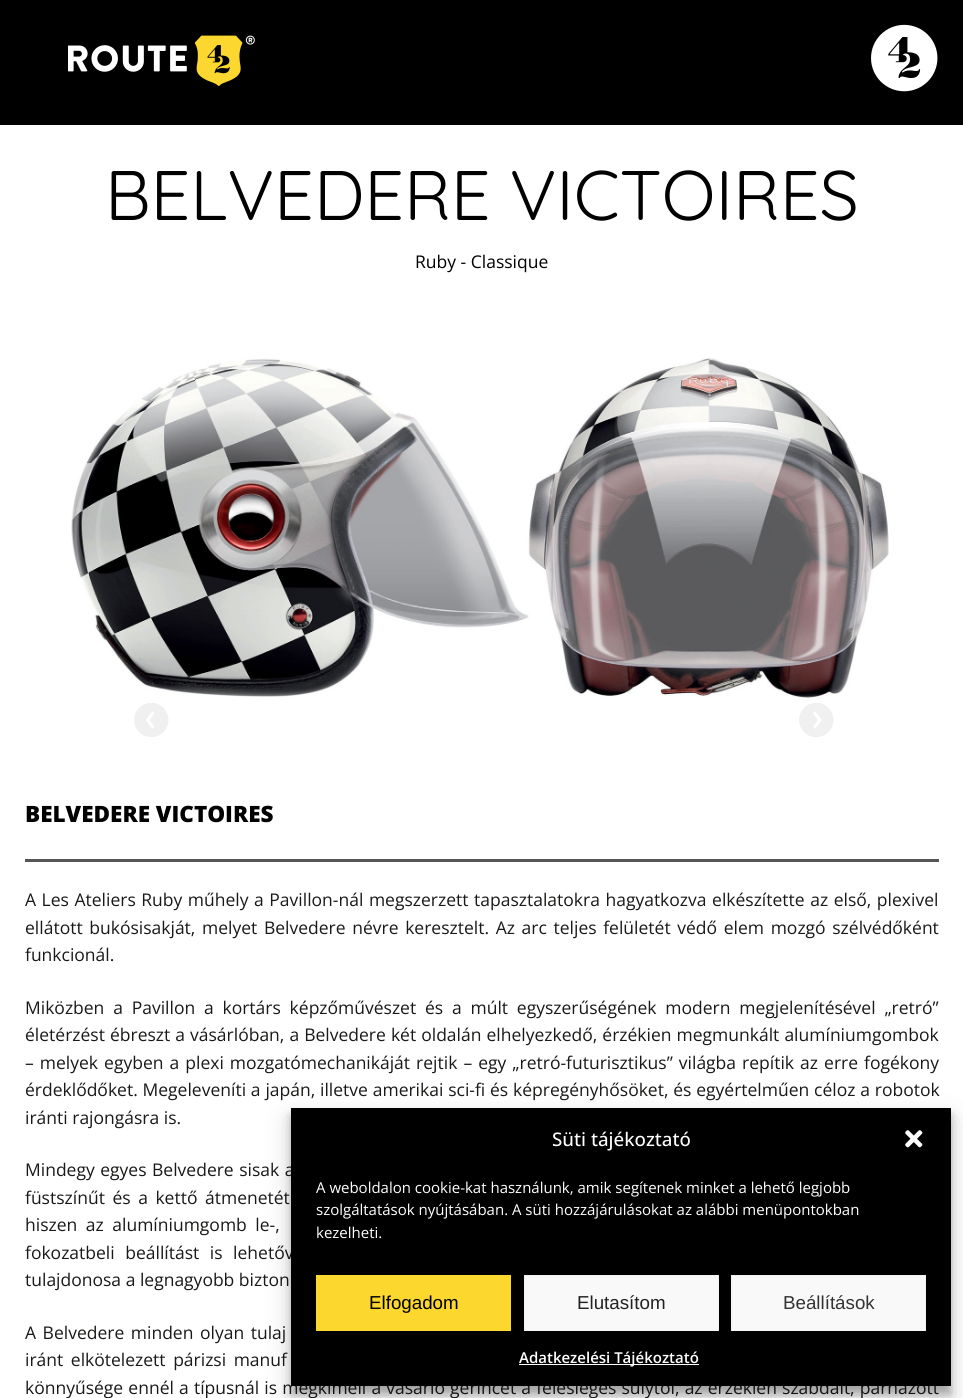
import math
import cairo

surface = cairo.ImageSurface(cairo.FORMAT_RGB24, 963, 1398)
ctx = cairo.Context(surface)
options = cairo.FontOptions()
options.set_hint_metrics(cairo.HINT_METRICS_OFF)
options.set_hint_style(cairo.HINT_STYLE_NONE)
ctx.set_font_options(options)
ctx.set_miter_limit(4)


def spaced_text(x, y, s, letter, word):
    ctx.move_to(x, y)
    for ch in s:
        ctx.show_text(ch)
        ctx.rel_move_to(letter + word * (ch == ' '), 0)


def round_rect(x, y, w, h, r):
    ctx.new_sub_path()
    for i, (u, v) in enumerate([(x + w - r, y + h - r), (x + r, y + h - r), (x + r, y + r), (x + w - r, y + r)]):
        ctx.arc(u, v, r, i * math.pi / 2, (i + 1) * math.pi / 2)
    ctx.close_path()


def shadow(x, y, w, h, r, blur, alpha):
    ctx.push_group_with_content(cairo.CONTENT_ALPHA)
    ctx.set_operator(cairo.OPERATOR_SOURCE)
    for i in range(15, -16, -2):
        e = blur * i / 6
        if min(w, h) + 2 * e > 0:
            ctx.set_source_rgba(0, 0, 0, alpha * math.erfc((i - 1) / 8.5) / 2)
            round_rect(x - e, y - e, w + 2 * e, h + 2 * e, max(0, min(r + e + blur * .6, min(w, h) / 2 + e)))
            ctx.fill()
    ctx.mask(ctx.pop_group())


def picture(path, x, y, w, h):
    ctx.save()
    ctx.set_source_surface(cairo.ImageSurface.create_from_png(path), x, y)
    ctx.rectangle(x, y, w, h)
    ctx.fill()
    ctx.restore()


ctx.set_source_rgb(1, 1, 1)
ctx.paint()
ctx.set_source_rgb(0, 0, 0)
ctx.rectangle(0, 0, 963, 125)
ctx.fill()
picture("img1.png", 68, 35, 187, 51)
picture("img2.png", 871, 24, 67, 68)
ctx.select_font_face("Quicksand")
ctx.set_font_size(70)
ctx.move_to(105, 220)
ctx.show_text("BELVEDERE VICTOIRES")
ctx.select_font_face("Open Sans")
ctx.set_font_size(17.5)
ctx.move_to(415, 268)
ctx.show_text("Ruby - Classique")
picture("img3.png", 71, 358, 818, 340)
ctx.select_font_face("Open Sans ExtraBold")
ctx.set_font_size(22.5)
ctx.move_to(25, 822)
ctx.show_text("BELVEDERE VICTOIRES")
ctx.set_source_rgb(0.337, 0.337, 0.337)
ctx.rectangle(25, 859, 914, 3)
ctx.fill()
ctx.select_font_face("Open Sans")
ctx.set_font_size(17.5)
ctx.set_source_rgb(0.098, 0.098, 0.094)
spaced_text(25, 906, "A Les Ateliers Ruby műhely a Pavillon-nál megszerzett tapasztalatokra hagyatkozva elkészítette az első, plexivel", 0, 1)
spaced_text(25, 934, "ellátott bukósisakját, melyet Belvedere névre keresztelt. Az arc teljes felületét védő elem mozgó szélvédőként", 0, 2.1)
ctx.move_to(25, 961)
ctx.show_text("funkcionál.")
spaced_text(25, 1014, "Miközben a Pavillon a kortárs képzőművészet és a múlt egyszerűségének modern megjelenítésével „retró”", 0, 4.25)
spaced_text(25, 1041, "életérzést ébreszt a vásárlóban, a Belvedere két oldalán elhelyezkedő, érzékien megmunkált alumíniumgombok", 0, 0.5)
spaced_text(25, 1069, "– melyek egyben a plexi mozgatómechanikáját rejtik – egy „retró-futurisztikus” világba repítik az erre fogékony", 0, 1.5)
spaced_text(25, 1096, "érdeklődőket. Megeleveníti a japán, illetve amerikai sci-fi és képregényhősöket, és egyértelműen céloz a robotok", 0, 0.25)
ctx.move_to(25, 1124)
ctx.show_text("iránti rajongásra is.")
spaced_text(25, 1176, "Mindegy egyes Belvedere sisak a", 0, 1)
spaced_text(25, 1204, "füstszínűt és a kettő átmenetét", 0, 3)
spaced_text(25, 1231, "hiszen az alumíniumgomb le-,", 0, 4)
spaced_text(25, 1259, "fokozatbeli beállítást is lehetőv", 0, 6)
ctx.move_to(25, 1286)
ctx.show_text("tulajdonosa a legnagyobb bizton")
spaced_text(25, 1339, "A Belvedere minden olyan tulaj", 0, 2)
spaced_text(25, 1366, "iránt elkötelezett párizsi manuf", 0, 3)
spaced_text(25, 1394, "könnyűsége ennél a típusnál is megkíméli a vásárló gerincét a felesleges súlytól, az érzékien szabdalt, párnázott", 0, 0.6)
picture("img4.png", 134, 703, 35, 34)
picture("img5.png", 799, 703, 35, 34)
ctx.set_source_rgb(0, 0, 0)
shadow(291, 1115, 660, 279, 0, 4, 0.23)
shadow(291, 1120, 660, 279, 0, 12.5, 0.19)
ctx.set_source_rgb(0, 0, 0)
ctx.rectangle(291, 1108, 660, 278)
ctx.fill()
ctx.select_font_face("Open Sans Medium")
ctx.set_font_size(18.75)
ctx.set_source_rgb(1, 1, 1)
ctx.move_to(552, 1146)
ctx.show_text("Süti tájékoztató")
picture("img6.png", 905, 1130, 18, 18)
ctx.select_font_face("Open Sans")
ctx.set_font_size(15)
ctx.move_to(316, 1193)
ctx.show_text("A weboldalon cookie-kat használunk, amik segítenek minket a lehető legjobb")
ctx.move_to(316, 1215)
ctx.show_text("szolgáltatások nyújtásában. A süti hozzájárulásokat az alábbi menüpontokban")
ctx.move_to(316, 1238)
ctx.show_text("kezelheti.")
ctx.set_source_rgb(0.988, 0.843, 0.18)
ctx.rectangle(316, 1275, 195, 56)
ctx.fill()
ctx.select_font_face("Liberation Sans")
ctx.set_font_size(18.75)
ctx.set_source_rgb(0, 0, 0)
ctx.move_to(369, 1309)
ctx.show_text("Elfogadom")
ctx.set_source_rgb(0.976, 0.976, 0.976)
ctx.rectangle(524.5, 1275.5, 194, 55)
ctx.fill_preserve()
ctx.set_source_rgb(0.949, 0.949, 0.949)
ctx.set_line_width(1)
ctx.stroke()
ctx.set_source_rgb(0.133, 0.133, 0.133)
ctx.move_to(577, 1309)
ctx.show_text("Elutasítom")
ctx.set_source_rgb(0.976, 0.976, 0.976)
ctx.rectangle(731.5, 1275.5, 194, 55)
ctx.fill_preserve()
ctx.set_source_rgb(0.949, 0.949, 0.949)
ctx.stroke()
ctx.set_source_rgb(0.2, 0.2, 0.2)
ctx.move_to(783, 1309)
ctx.show_text("Beállítások")
ctx.set_source_rgb(1, 1, 1)
ctx.rectangle(519, 1364, 180, 1)
ctx.fill()
ctx.select_font_face("Open Sans SemiBold")
ctx.set_font_size(15)
ctx.move_to(519, 1363)
ctx.show_text("Adatkezelési Tájékoztató")
surface.write_to_png("page.png")
